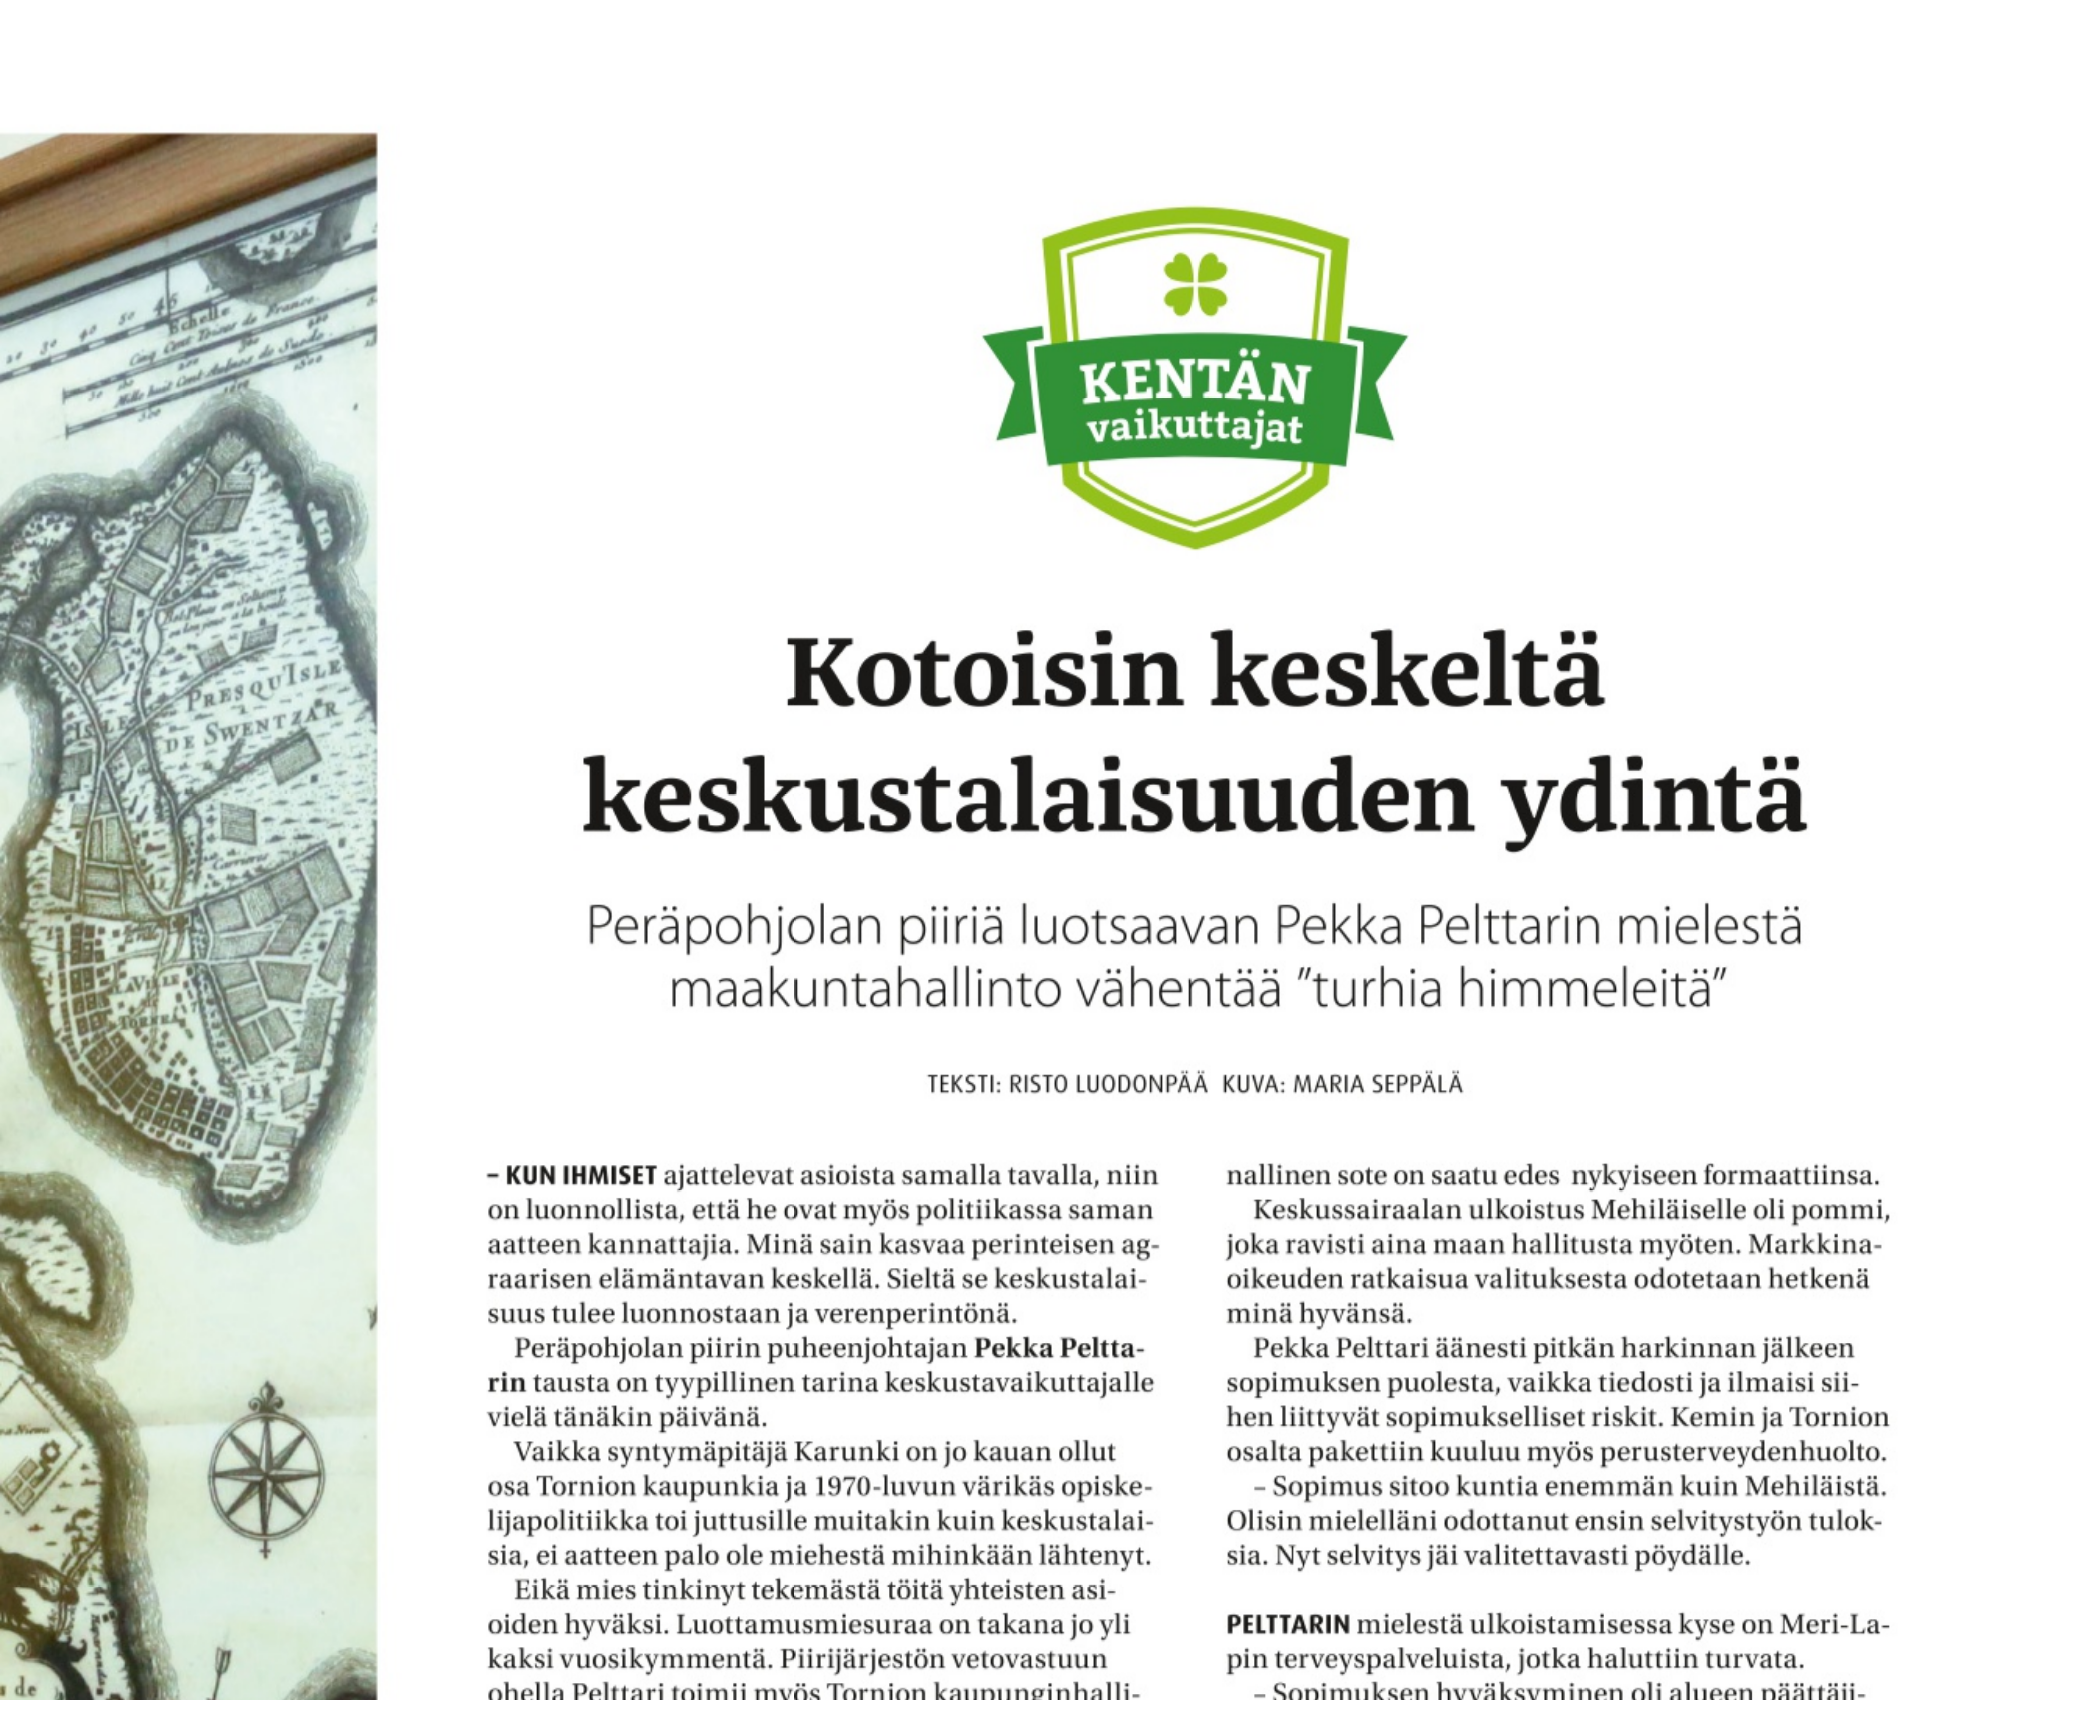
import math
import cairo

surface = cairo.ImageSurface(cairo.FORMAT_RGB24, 2092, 1709)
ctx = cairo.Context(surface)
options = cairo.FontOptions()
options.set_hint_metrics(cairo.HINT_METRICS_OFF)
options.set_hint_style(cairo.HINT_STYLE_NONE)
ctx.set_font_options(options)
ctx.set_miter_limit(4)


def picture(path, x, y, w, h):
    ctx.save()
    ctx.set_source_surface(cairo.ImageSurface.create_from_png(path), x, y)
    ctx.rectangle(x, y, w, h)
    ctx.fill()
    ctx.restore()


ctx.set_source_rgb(1, 1, 1)
ctx.paint()
picture("img1.png", 0, 0, 2092, 1700)
surface.write_to_png("page.png")
